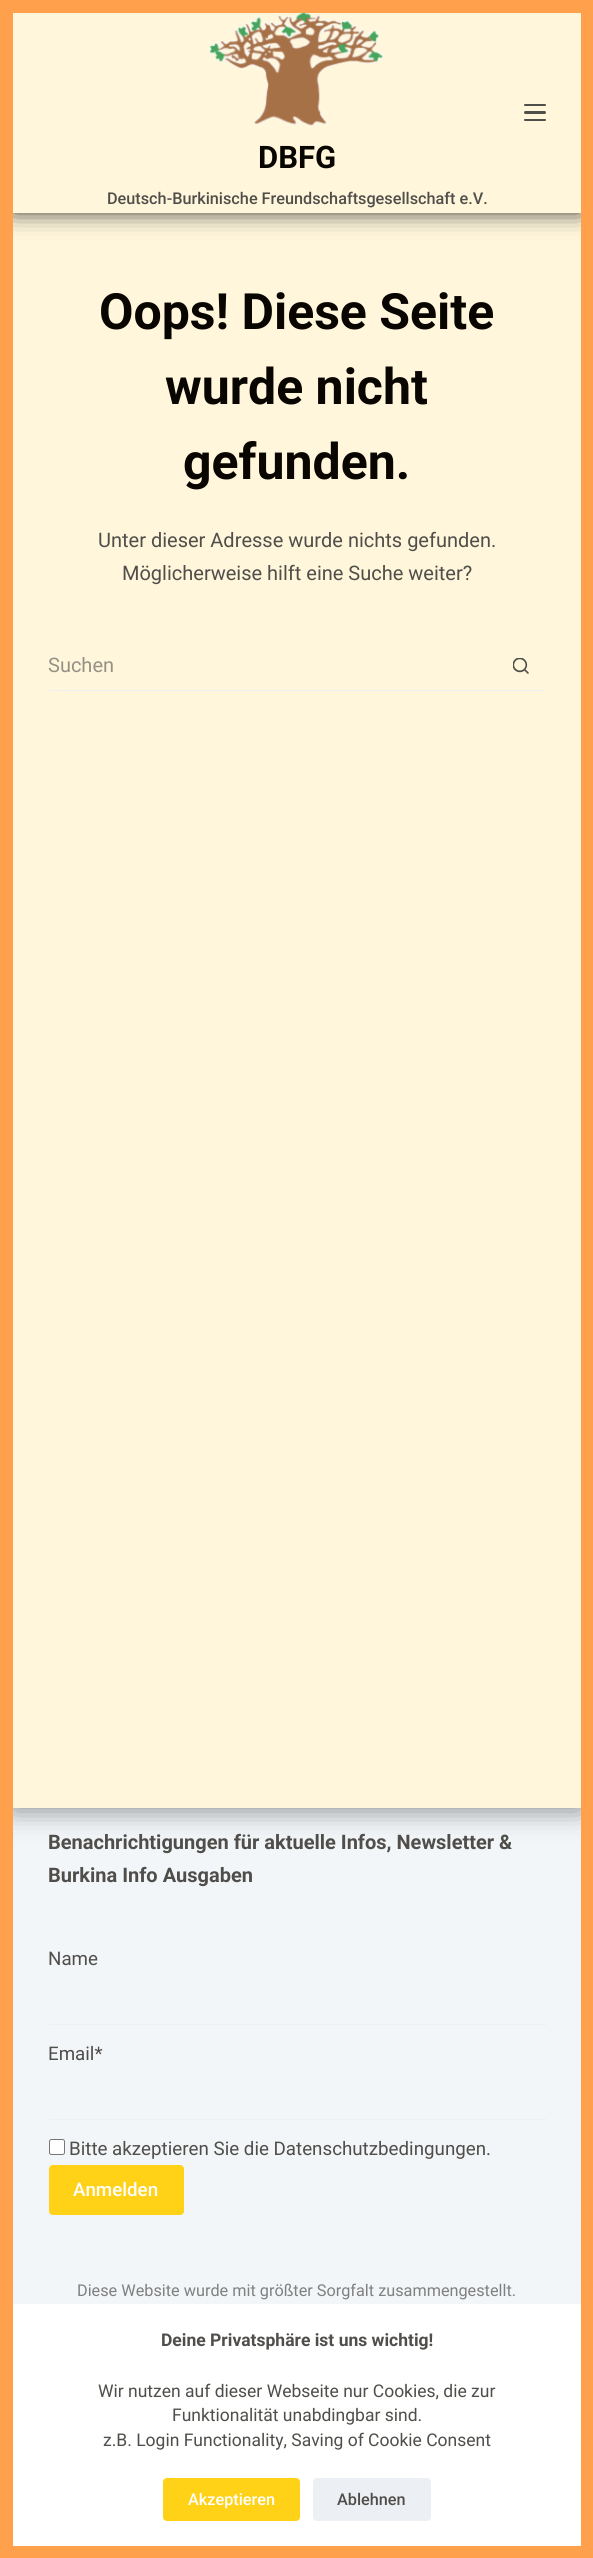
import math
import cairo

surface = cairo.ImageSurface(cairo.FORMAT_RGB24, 593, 2558)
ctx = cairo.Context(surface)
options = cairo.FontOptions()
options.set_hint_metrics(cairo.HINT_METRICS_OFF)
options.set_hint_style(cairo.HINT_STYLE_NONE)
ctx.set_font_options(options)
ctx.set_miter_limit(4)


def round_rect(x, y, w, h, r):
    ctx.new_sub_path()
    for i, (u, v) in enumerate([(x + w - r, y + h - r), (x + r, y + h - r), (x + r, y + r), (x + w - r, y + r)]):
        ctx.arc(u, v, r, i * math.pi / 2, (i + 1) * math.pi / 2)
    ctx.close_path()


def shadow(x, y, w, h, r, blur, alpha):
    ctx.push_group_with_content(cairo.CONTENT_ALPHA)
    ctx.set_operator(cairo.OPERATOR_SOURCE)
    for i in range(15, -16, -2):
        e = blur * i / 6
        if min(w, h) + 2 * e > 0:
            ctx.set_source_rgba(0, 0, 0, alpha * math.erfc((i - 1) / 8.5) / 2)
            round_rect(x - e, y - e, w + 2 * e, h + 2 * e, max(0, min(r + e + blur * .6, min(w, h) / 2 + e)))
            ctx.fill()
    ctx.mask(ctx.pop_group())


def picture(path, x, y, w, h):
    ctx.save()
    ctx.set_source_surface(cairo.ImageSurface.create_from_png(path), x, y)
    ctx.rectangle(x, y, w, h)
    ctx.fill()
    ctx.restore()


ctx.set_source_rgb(1, 1, 1)
ctx.paint()
ctx.rectangle(6.5, 6.5, 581, 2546)
ctx.set_source_rgb(1, 0.627, 0.302)
ctx.set_line_width(13)
ctx.stroke()
ctx.set_source_rgb(0.949, 0.961, 0.969)
ctx.rectangle(13, 1808, 568, 496)
ctx.fill()
ctx.save()
ctx.rectangle(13, 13, 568, 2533)
ctx.clip()
ctx.set_source_rgb(0, 0, 0)
shadow(13, 216, 568, 1595, 0, 13, 0.42)
ctx.restore()
ctx.set_source_rgb(1, 0.961, 0.859)
ctx.rectangle(13, 213, 568, 1595)
ctx.fill()
ctx.save()
ctx.rectangle(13, 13, 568, 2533)
ctx.clip()
ctx.set_source_rgb(0, 0, 0)
shadow(13, 9, 568, 200, 0, 12.5, 1)
ctx.restore()
ctx.rectangle(13, 13, 568, 200)
ctx.fill()
ctx.set_source_rgb(0.314, 0.306, 0.29)
round_rect(524, 104, 22, 2, 1)
ctx.fill()
round_rect(524, 111, 22, 3, 1.5)
ctx.fill()
round_rect(524, 119, 22, 2, 1)
ctx.fill()
picture("img1.png", 209, 13, 175, 113)
ctx.select_font_face("Roboto", cairo.FONT_SLANT_NORMAL, cairo.FONT_WEIGHT_BOLD)
ctx.set_font_size(31)
ctx.set_source_rgb(0.039, 0.02, 0)
ctx.move_to(258, 168)
ctx.show_text("DBFG")
ctx.select_font_face("Roboto Medium")
ctx.set_font_size(16.25)
ctx.set_source_rgb(0.314, 0.306, 0.29)
ctx.move_to(107, 204)
ctx.show_text("Deutsch-Burkinische Freundschaftsgesellschaft e.V.")
ctx.select_font_face("Roboto", cairo.FONT_SLANT_NORMAL, cairo.FONT_WEIGHT_BOLD)
ctx.set_font_size(50)
ctx.set_source_rgb(0.039, 0.02, 0)
ctx.move_to(99, 329)
ctx.show_text("Oops! Diese Seite")
ctx.move_to(165, 404)
ctx.show_text("wurde nicht")
ctx.move_to(183, 479)
ctx.show_text("gefunden.")
ctx.select_font_face("Roboto")
ctx.set_font_size(20)
ctx.set_source_rgb(0.314, 0.306, 0.29)
ctx.move_to(98, 547)
ctx.show_text("Unter dieser Adresse wurde nichts gefunden.")
ctx.move_to(122, 580)
ctx.show_text("Möglicherweise hilft eine Suche weiter?")
ctx.set_source_rgb(0.929, 0.937, 0.949)
ctx.rectangle(49, 690, 497, 1)
ctx.fill()
ctx.set_source_rgb(0.588, 0.569, 0.518)
ctx.move_to(48, 672)
ctx.show_text("Suchen")
picture("img2.png", 513, 658, 16, 16)
ctx.select_font_face("Roboto", cairo.FONT_SLANT_NORMAL, cairo.FONT_WEIGHT_BOLD)
ctx.set_source_rgb(0.314, 0.306, 0.29)
ctx.move_to(48, 1849)
ctx.show_text("Benachrichtigungen für aktuelle Infos, Newsletter &")
ctx.move_to(48, 1882)
ctx.show_text("Burkina Info Ausgaben")
ctx.select_font_face("Roboto")
ctx.set_font_size(18.75)
ctx.move_to(48, 1965)
ctx.show_text("Name")
ctx.set_source_rgb(0.929, 0.937, 0.949)
ctx.rectangle(49, 2024, 497, 1)
ctx.fill()
ctx.set_source_rgb(0.314, 0.306, 0.29)
ctx.move_to(48, 2060)
ctx.show_text("Email*")
ctx.set_source_rgb(0.929, 0.937, 0.949)
ctx.rectangle(49, 2119, 497, 1)
ctx.fill()
ctx.set_source_rgb(1, 1, 1)
round_rect(49.5, 2139.5, 15, 15, 2)
ctx.fill_preserve()
ctx.set_source_rgb(0.463, 0.463, 0.463)
ctx.set_line_width(1)
ctx.stroke()
ctx.set_source_rgb(0.314, 0.306, 0.29)
ctx.move_to(69, 2155)
ctx.show_text("Bitte akzeptieren Sie die Datenschutzbedingungen.")
ctx.set_source_rgb(1, 0.82, 0.09)
round_rect(49, 2165, 135, 50, 4)
ctx.fill()
ctx.select_font_face("Roboto Medium")
ctx.set_source_rgb(1, 1, 1)
ctx.move_to(73, 2196)
ctx.show_text("Anmelden")
ctx.select_font_face("Roboto")
ctx.set_font_size(16.25)
ctx.set_source_rgb(0.502, 0.502, 0.502)
ctx.move_to(77, 2296)
ctx.show_text("Diese Website wurde mit größter Sorgfalt zusammengestellt.")
ctx.select_font_face("Roboto", cairo.FONT_SLANT_NORMAL, cairo.FONT_WEIGHT_BOLD)
ctx.set_font_size(17.5)
ctx.set_source_rgb(0.314, 0.306, 0.29)
ctx.move_to(161, 2346)
ctx.show_text("Deine Privatsphäre ist uns wichtig!")
ctx.select_font_face("Roboto")
ctx.move_to(98, 2397)
ctx.show_text("Wir nutzen auf dieser Webseite nur Cookies, die zur")
ctx.move_to(172, 2421)
ctx.show_text("Funktionalität unabdingbar sind.")
ctx.move_to(103, 2446)
ctx.show_text("z.B. Login Functionality, Saving of Cookie Consent")
ctx.set_source_rgb(1, 0.82, 0.09)
round_rect(163, 2478, 137, 43, 4)
ctx.fill()
ctx.select_font_face("Roboto Medium")
ctx.set_font_size(16.25)
ctx.set_source_rgb(1, 1, 1)
ctx.move_to(188, 2505)
ctx.show_text("Akzeptieren")
ctx.set_source_rgb(0.925, 0.937, 0.953)
round_rect(313, 2478, 118, 43, 4)
ctx.fill()
ctx.set_source_rgb(0.314, 0.306, 0.29)
ctx.move_to(337, 2505)
ctx.show_text("Ablehnen")
surface.write_to_png("page.png")
